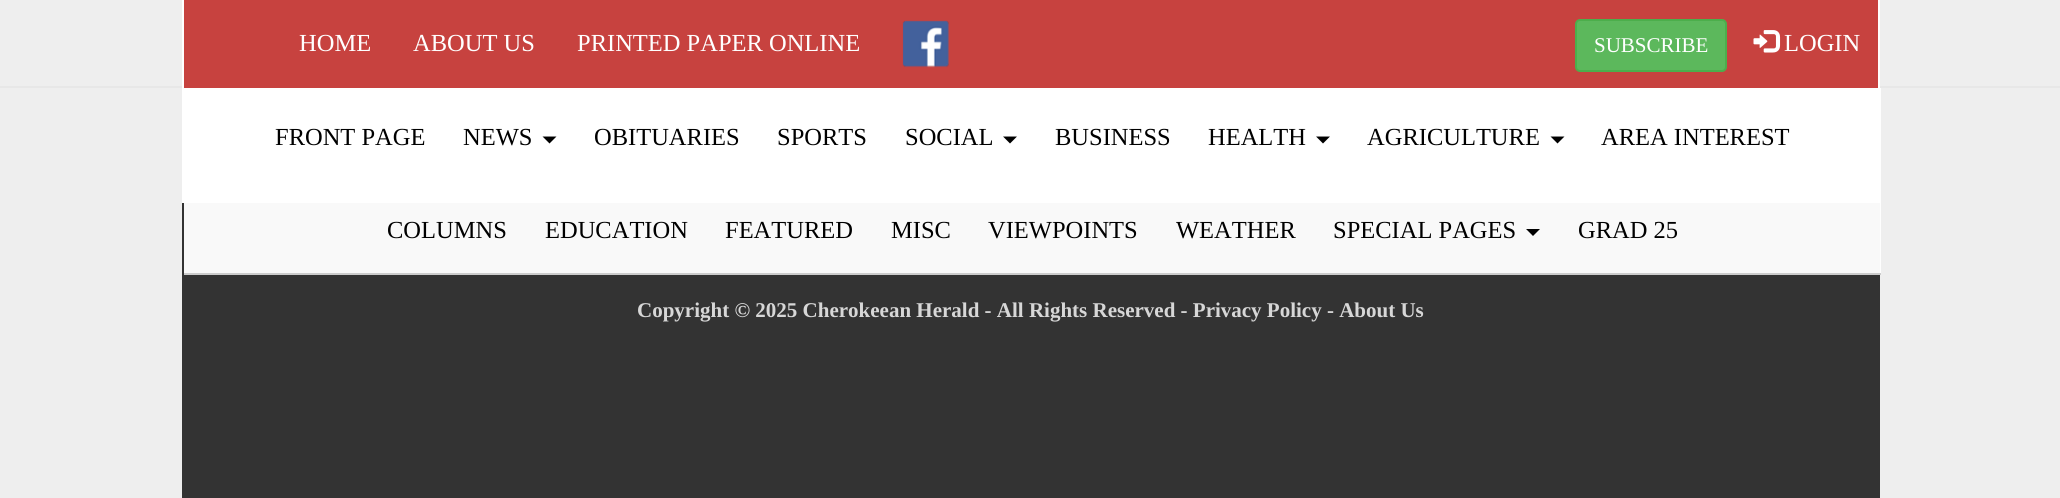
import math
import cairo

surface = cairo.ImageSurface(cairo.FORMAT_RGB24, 2060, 498)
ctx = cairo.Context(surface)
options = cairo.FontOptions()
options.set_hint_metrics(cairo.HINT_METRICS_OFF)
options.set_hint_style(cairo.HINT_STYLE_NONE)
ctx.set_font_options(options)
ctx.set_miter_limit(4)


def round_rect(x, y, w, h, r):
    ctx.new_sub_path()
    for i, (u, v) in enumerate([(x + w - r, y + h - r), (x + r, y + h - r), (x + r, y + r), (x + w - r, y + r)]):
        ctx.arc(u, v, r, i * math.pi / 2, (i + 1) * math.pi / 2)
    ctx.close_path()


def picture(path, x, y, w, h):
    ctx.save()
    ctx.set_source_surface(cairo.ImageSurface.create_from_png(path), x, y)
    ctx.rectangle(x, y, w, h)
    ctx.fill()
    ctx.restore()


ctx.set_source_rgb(0.933, 0.933, 0.933)
ctx.paint()
ctx.set_source_rgb(0.996, 0.996, 0.996)
ctx.rectangle(1880, 88, 1, 185)
ctx.fill()
ctx.set_source_rgb(1, 1, 1)
ctx.rectangle(1878, 88, 2, 115)
ctx.fill()
ctx.rectangle(182, 88, 1696, 115)
ctx.fill()
ctx.set_source_rgb(0.906, 0.906, 0.906)
ctx.rectangle(0, 86, 2060, 2)
ctx.fill()
ctx.set_source_rgb(0.78, 0.259, 0.247)
ctx.rectangle(184, 0, 1694, 88)
ctx.fill()
ctx.set_source_rgb(1, 1, 1)
ctx.rectangle(1878, 0, 2, 88)
ctx.fill()
ctx.rectangle(182, 0, 2, 88)
ctx.fill()
ctx.select_font_face("Liberation Serif")
ctx.set_font_size(24.5)
ctx.move_to(299, 51)
ctx.show_text("HOME")
ctx.move_to(413, 51)
ctx.show_text("ABOUT US")
ctx.move_to(577, 51)
ctx.show_text("PRINTED PAPER ONLINE")
picture("img1.png", 902, 20, 47, 48)
ctx.set_source_rgb(0.361, 0.722, 0.361)
round_rect(1576, 20, 150, 51, 4)
ctx.fill_preserve()
ctx.set_source_rgb(0.298, 0.682, 0.298)
ctx.stroke()
ctx.set_font_size(21)
ctx.set_source_rgb(1, 1, 1)
ctx.move_to(1594, 52)
ctx.show_text("SUBSCRIBE")
picture("img2.png", 1753, 30, 28, 23)
ctx.set_font_size(24.5)
ctx.move_to(1784, 51)
ctx.show_text("LOGIN")
ctx.set_source_rgb(0.2, 0.2, 0.2)
ctx.rectangle(182, 203, 1698, 295)
ctx.fill()
ctx.set_source_rgb(0.8, 0.8, 0.8)
ctx.rectangle(184, 273, 1697, 2)
ctx.fill()
ctx.set_source_rgb(0, 0, 0)
ctx.move_to(275, 145)
ctx.show_text("FRONT PAGE")
ctx.move_to(463, 145)
ctx.show_text("NEWS")
ctx.new_path()
ctx.move_to(542.5, 136.5)
ctx.line_to(556.5, 136.5)
ctx.line_to(549.5, 143.5)
ctx.close_path()
ctx.fill()
ctx.move_to(594, 145)
ctx.show_text("OBITUARIES")
ctx.move_to(777, 145)
ctx.show_text("SPORTS")
ctx.move_to(905, 145)
ctx.show_text("SOCIAL")
ctx.new_path()
ctx.move_to(1003, 136.5)
ctx.line_to(1017, 136.5)
ctx.line_to(1010, 143.5)
ctx.close_path()
ctx.fill()
ctx.move_to(1055, 145)
ctx.show_text("BUSINESS")
ctx.move_to(1208, 145)
ctx.show_text("HEALTH")
ctx.new_path()
ctx.move_to(1316, 136.5)
ctx.line_to(1330, 136.5)
ctx.line_to(1323, 143.5)
ctx.close_path()
ctx.fill()
ctx.move_to(1367, 145)
ctx.show_text("AGRICULTURE")
ctx.new_path()
ctx.move_to(1550.5, 136.5)
ctx.line_to(1564.5, 136.5)
ctx.line_to(1557.5, 143.5)
ctx.close_path()
ctx.fill()
ctx.move_to(1601, 145)
ctx.show_text("AREA INTEREST")
ctx.set_source_rgb(0.976, 0.976, 0.976)
ctx.rectangle(184, 203, 1696, 70)
ctx.fill()
ctx.set_source_rgb(0, 0, 0)
ctx.move_to(387, 238)
ctx.show_text("COLUMNS")
ctx.move_to(545, 238)
ctx.show_text("EDUCATION")
ctx.move_to(725, 238)
ctx.show_text("FEATURED")
ctx.move_to(891, 238)
ctx.show_text("MISC")
ctx.move_to(988, 238)
ctx.show_text("VIEWPOINTS")
ctx.move_to(1176, 238)
ctx.show_text("WEATHER")
ctx.move_to(1333, 238)
ctx.show_text("SPECIAL PAGES")
ctx.new_path()
ctx.move_to(1526, 229)
ctx.line_to(1540, 229)
ctx.line_to(1533, 236)
ctx.close_path()
ctx.fill()
ctx.move_to(1578, 238)
ctx.show_text("GRAD 25")
ctx.select_font_face("Liberation Serif", cairo.FONT_SLANT_NORMAL, cairo.FONT_WEIGHT_BOLD)
ctx.set_font_size(21)
ctx.set_source_rgb(0.843, 0.843, 0.843)
ctx.move_to(637, 317)
ctx.show_text("Copyright © 2025 Cherokeean Herald - All Rights Reserved - Privacy Policy - About Us")
surface.write_to_png("page.png")
